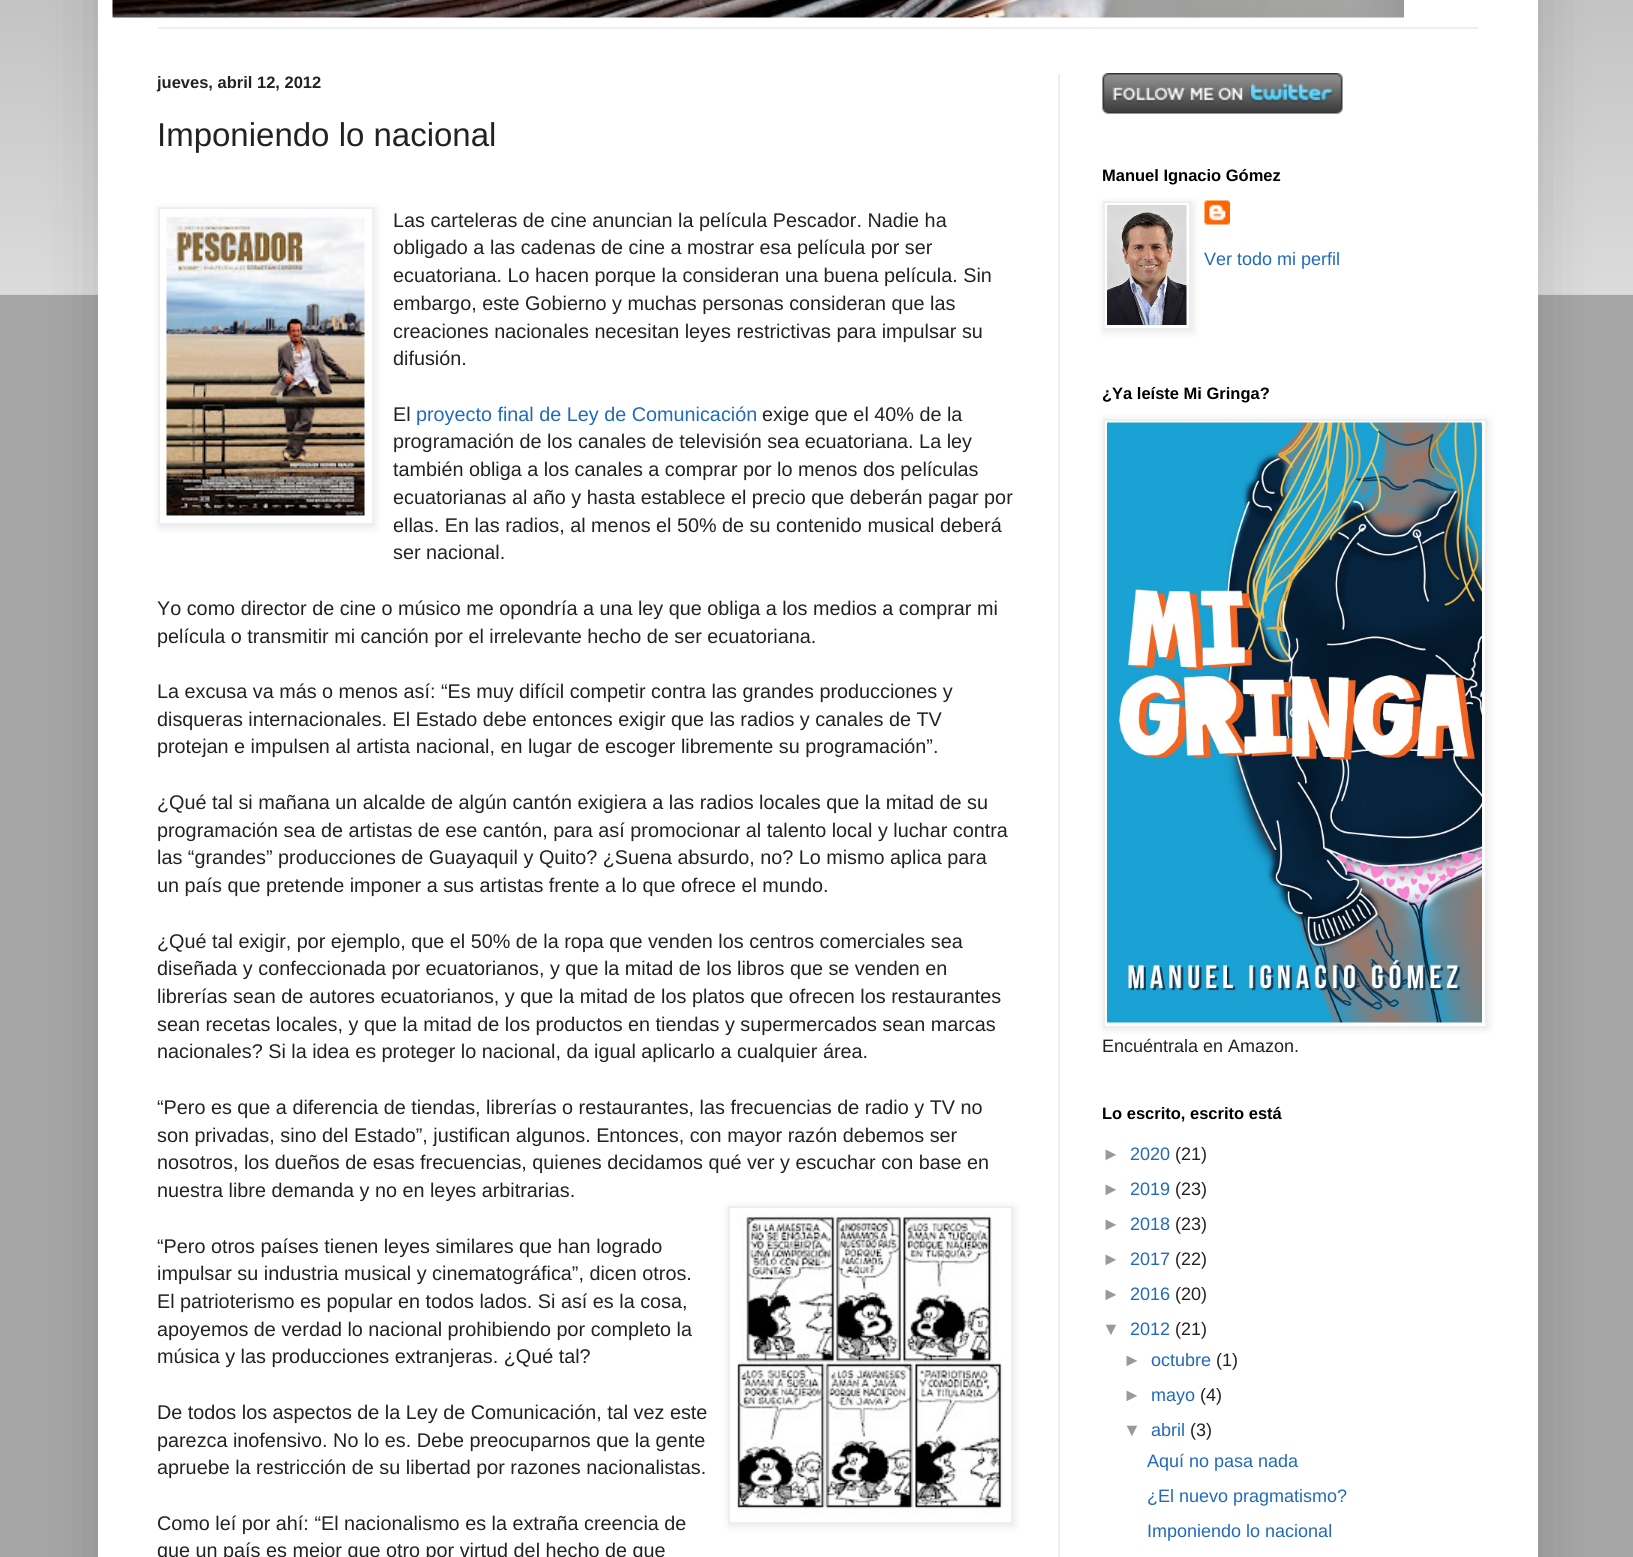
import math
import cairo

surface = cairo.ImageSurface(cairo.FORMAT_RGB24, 1633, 1557)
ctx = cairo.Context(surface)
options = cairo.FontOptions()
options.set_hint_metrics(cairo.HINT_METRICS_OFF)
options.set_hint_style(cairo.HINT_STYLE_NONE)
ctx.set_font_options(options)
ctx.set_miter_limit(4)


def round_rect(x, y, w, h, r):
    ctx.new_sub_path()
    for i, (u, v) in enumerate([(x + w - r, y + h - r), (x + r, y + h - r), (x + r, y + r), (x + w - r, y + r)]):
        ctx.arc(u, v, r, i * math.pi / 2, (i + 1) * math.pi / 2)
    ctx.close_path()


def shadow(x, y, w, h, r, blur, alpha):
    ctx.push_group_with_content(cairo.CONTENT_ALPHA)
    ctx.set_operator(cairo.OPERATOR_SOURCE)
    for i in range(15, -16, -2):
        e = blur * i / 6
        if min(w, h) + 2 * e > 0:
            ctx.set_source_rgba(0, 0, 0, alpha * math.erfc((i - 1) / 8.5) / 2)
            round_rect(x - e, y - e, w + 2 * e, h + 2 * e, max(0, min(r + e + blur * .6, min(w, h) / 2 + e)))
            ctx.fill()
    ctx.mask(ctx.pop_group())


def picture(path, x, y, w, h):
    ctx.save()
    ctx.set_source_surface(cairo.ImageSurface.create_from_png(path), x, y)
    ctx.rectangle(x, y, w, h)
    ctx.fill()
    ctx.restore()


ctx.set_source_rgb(0.651, 0.651, 0.651)
ctx.paint()
picture("img1.png", 0, 0, 1633, 295)
ctx.set_source_rgb(0, 0, 0)
shadow(98, -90, 1440, 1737, 0, 30, 0.15)
ctx.set_source_rgb(1, 1, 1)
ctx.rectangle(98, 0, 1440, 1557)
ctx.fill()
picture("img2.png", 112, 0, 1292, 18)
ctx.set_source_rgb(0.933, 0.933, 0.933)
ctx.rectangle(158, 27, 1320, 2)
ctx.fill()
ctx.rectangle(1058, 74, 2, 1483)
ctx.fill()
ctx.select_font_face("Liberation Sans", cairo.FONT_SLANT_NORMAL, cairo.FONT_WEIGHT_BOLD)
ctx.set_font_size(16.5)
ctx.set_source_rgb(0.133, 0.133, 0.133)
ctx.move_to(157, 88)
ctx.show_text("jueves, abril 12, 2012")
ctx.select_font_face("Liberation Sans")
ctx.set_font_size(33)
ctx.move_to(157, 146)
ctx.show_text("Imponiendo lo nacional")
ctx.set_source_rgb(0, 0, 0)
shadow(159, 209, 216, 318, 0, 4, 0.1)
ctx.set_source_rgb(1, 1, 1)
ctx.rectangle(159, 208, 214, 316)
ctx.fill_preserve()
ctx.set_source_rgb(0.933, 0.933, 0.933)
ctx.stroke()
picture("img3.png", 166, 215, 199, 301)
ctx.set_font_size(19.8)
ctx.set_source_rgb(0.133, 0.133, 0.133)
ctx.move_to(393, 227)
ctx.show_text("Las carteleras de cine anuncian la película Pescador. Nadie ha")
ctx.move_to(393, 254)
ctx.show_text("obligado a las cadenas de cine a mostrar esa película por ser")
ctx.move_to(393, 282)
ctx.show_text("ecuatoriana. Lo hacen porque la consideran una buena película. Sin")
ctx.move_to(393, 310)
ctx.show_text("embargo, este Gobierno y muchas personas consideran que las")
ctx.move_to(393, 338)
ctx.show_text("creaciones nacionales necesitan leyes restrictivas para impulsar su")
ctx.move_to(393, 365)
ctx.show_text("difusión.")
ctx.move_to(393, 421)
ctx.show_text("El")
ctx.set_source_rgb(0.129, 0.412, 0.733)
ctx.move_to(416, 421)
ctx.show_text("proyecto final de Ley de Comunicación")
ctx.set_source_rgb(0.133, 0.133, 0.133)
ctx.move_to(762, 421)
ctx.show_text("exige que el 40% de la")
ctx.move_to(393, 448)
ctx.show_text("programación de los canales de televisión sea ecuatoriana. La ley")
ctx.move_to(393, 476)
ctx.show_text("también obliga a los canales a comprar por lo menos dos películas")
ctx.move_to(393, 504)
ctx.show_text("ecuatorianas al año y hasta establece el precio que deberán pagar por")
ctx.move_to(393, 532)
ctx.show_text("ellas. En las radios, al menos el 50% de su contenido musical deberá")
ctx.move_to(393, 559)
ctx.show_text("ser nacional.")
ctx.move_to(157, 615)
ctx.show_text("Yo como director de cine o músico me opondría a una ley que obliga a los medios a comprar mi")
ctx.move_to(157, 643)
ctx.show_text("película o transmitir mi canción por el irrelevante hecho de ser ecuatoriana.")
ctx.move_to(157, 698)
ctx.show_text("La excusa va más o menos así: “Es muy difícil competir contra las grandes producciones y")
ctx.move_to(157, 726)
ctx.show_text("disqueras internacionales. El Estado debe entonces exigir que las radios y canales de TV")
ctx.move_to(157, 753)
ctx.show_text("protejan e impulsen al artista nacional, en lugar de escoger libremente su programación”.")
ctx.move_to(157, 809)
ctx.show_text("¿Qué tal si mañana un alcalde de algún cantón exigiera a las radios locales que la mitad de su")
ctx.move_to(157, 837)
ctx.show_text("programación sea de artistas de ese cantón, para así promocionar al talento local y luchar contra")
ctx.move_to(157, 864)
ctx.show_text("las “grandes” producciones de Guayaquil y Quito? ¿Suena absurdo, no? Lo mismo aplica para")
ctx.move_to(157, 892)
ctx.show_text("un país que pretende imponer a sus artistas frente a lo que ofrece el mundo.")
ctx.move_to(157, 948)
ctx.show_text("¿Qué tal exigir, por ejemplo, que el 50% de la ropa que venden los centros comerciales sea")
ctx.move_to(157, 975)
ctx.show_text("diseñada y confeccionada por ecuatorianos, y que la mitad de los libros que se venden en")
ctx.move_to(157, 1003)
ctx.show_text("librerías sean de autores ecuatorianos, y que la mitad de los platos que ofrecen los restaurantes")
ctx.move_to(157, 1031)
ctx.show_text("sean recetas locales, y que la mitad de los productos en tiendas y supermercados sean marcas")
ctx.move_to(157, 1058)
ctx.show_text("nacionales? Si la idea es proteger lo nacional, da igual aplicarlo a cualquier área.")
ctx.move_to(157, 1114)
ctx.show_text("“Pero es que a diferencia de tiendas, librerías o restaurantes, las frecuencias de radio y TV no")
ctx.move_to(157, 1142)
ctx.show_text("son privadas, sino del Estado”, justifican algunos. Entonces, con mayor razón debemos ser")
ctx.move_to(157, 1169)
ctx.show_text("nosotros, los dueños de esas frecuencias, quienes decidamos qué ver y escuchar con base en")
ctx.move_to(157, 1197)
ctx.show_text("nuestra libre demanda y no en leyes arbitrarias.")
ctx.move_to(157, 1253)
ctx.show_text("“Pero otros países tienen leyes similares que han logrado")
ctx.move_to(157, 1280)
ctx.show_text("impulsar su industria musical y cinematográfica”, dicen otros.")
ctx.move_to(157, 1308)
ctx.show_text("El patrioterismo es popular en todos lados. Si así es la cosa,")
ctx.move_to(157, 1336)
ctx.show_text("apoyemos de verdad lo nacional prohibiendo por completo la")
ctx.move_to(157, 1363)
ctx.show_text("música y las producciones extranjeras. ¿Qué tal?")
ctx.move_to(157, 1419)
ctx.show_text("De todos los aspectos de la Ley de Comunicación, tal vez este")
ctx.move_to(157, 1447)
ctx.show_text("parezca inofensivo. No lo es. Debe preocuparnos que la gente")
ctx.move_to(157, 1474)
ctx.show_text("apruebe la restricción de su libertad por razones nacionalistas.")
ctx.move_to(157, 1530)
ctx.show_text("Como leí por ahí: “El nacionalismo es la extraña creencia de")
ctx.move_to(157, 1557)
ctx.show_text("que un país es mejor que otro por virtud del hecho de que")
ctx.set_source_rgb(0, 0, 0)
shadow(729, 1208, 285, 318, 0, 4, 0.1)
ctx.set_source_rgb(1, 1, 1)
ctx.rectangle(729, 1207, 283, 316)
ctx.fill_preserve()
ctx.set_source_rgb(0.933, 0.933, 0.933)
ctx.stroke()
picture("img4.png", 736, 1214, 267, 300)
picture("img5.png", 1102, 73, 241, 41)
ctx.select_font_face("Liberation Sans", cairo.FONT_SLANT_NORMAL, cairo.FONT_WEIGHT_BOLD)
ctx.set_font_size(16.5)
ctx.set_source_rgb(0, 0, 0)
ctx.move_to(1102, 181)
ctx.show_text("Manuel Ignacio Gómez")
picture("img7.png", 1204, 200, 26, 25)
ctx.save()
ctx.set_fill_rule(cairo.FILL_RULE_EVEN_ODD)
ctx.new_path()
ctx.move_to(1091, 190)
ctx.line_to(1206, 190)
ctx.line_to(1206, 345)
ctx.line_to(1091, 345)
ctx.close_path()
ctx.move_to(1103, 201)
ctx.line_to(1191, 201)
ctx.line_to(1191, 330)
ctx.line_to(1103, 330)
ctx.close_path()
ctx.clip()
ctx.set_source_rgb(0, 0, 0)
shadow(1104, 203, 89, 129, 0, 4, 0.1)
ctx.restore()
ctx.rectangle(1104, 202, 86, 127)
ctx.set_source_rgb(0.933, 0.933, 0.933)
ctx.stroke()
picture("img6.png", 1107, 205, 80, 120)
ctx.select_font_face("Liberation Sans")
ctx.set_font_size(18)
ctx.set_source_rgb(0.129, 0.412, 0.733)
ctx.move_to(1204, 265)
ctx.show_text("Ver todo mi perfil")
ctx.select_font_face("Liberation Sans", cairo.FONT_SLANT_NORMAL, cairo.FONT_WEIGHT_BOLD)
ctx.set_font_size(16.5)
ctx.set_source_rgb(0, 0, 0)
ctx.move_to(1102, 399)
ctx.show_text("¿Ya leíste Mi Gringa?")
ctx.set_source_rgb(0, 0, 0)
shadow(1104, 420, 384, 609, 0, 4, 0.1)
ctx.set_source_rgb(1, 1, 1)
ctx.rectangle(1104, 420, 382, 607)
ctx.fill_preserve()
ctx.set_source_rgb(0.933, 0.933, 0.933)
ctx.stroke()
picture("img8.png", 1107, 422, 375, 601)
ctx.select_font_face("Liberation Sans")
ctx.set_font_size(18)
ctx.set_source_rgb(0.133, 0.133, 0.133)
ctx.move_to(1102, 1052)
ctx.show_text("Encuéntrala en Amazon.")
ctx.select_font_face("Liberation Sans", cairo.FONT_SLANT_NORMAL, cairo.FONT_WEIGHT_BOLD)
ctx.set_font_size(16.5)
ctx.set_source_rgb(0, 0, 0)
ctx.move_to(1102, 1119)
ctx.show_text("Lo escrito, escrito está")
ctx.select_font_face("Liberation Sans")
ctx.set_font_size(18)
ctx.set_source_rgb(0.6, 0.6, 0.6)
ctx.move_to(1102, 1160)
ctx.show_text("►")
ctx.set_source_rgb(0.129, 0.412, 0.733)
ctx.move_to(1130, 1160)
ctx.show_text("2020")
ctx.set_source_rgb(0.133, 0.133, 0.133)
ctx.move_to(1175, 1160)
ctx.show_text("(21)")
ctx.set_source_rgb(0.6, 0.6, 0.6)
ctx.move_to(1102, 1195)
ctx.show_text("►")
ctx.set_source_rgb(0.129, 0.412, 0.733)
ctx.move_to(1130, 1195)
ctx.show_text("2019")
ctx.set_source_rgb(0.133, 0.133, 0.133)
ctx.move_to(1175, 1195)
ctx.show_text("(23)")
ctx.set_source_rgb(0.6, 0.6, 0.6)
ctx.move_to(1102, 1230)
ctx.show_text("►")
ctx.set_source_rgb(0.129, 0.412, 0.733)
ctx.move_to(1130, 1230)
ctx.show_text("2018")
ctx.set_source_rgb(0.133, 0.133, 0.133)
ctx.move_to(1175, 1230)
ctx.show_text("(23)")
ctx.set_source_rgb(0.6, 0.6, 0.6)
ctx.move_to(1102, 1265)
ctx.show_text("►")
ctx.set_source_rgb(0.129, 0.412, 0.733)
ctx.move_to(1130, 1265)
ctx.show_text("2017")
ctx.set_source_rgb(0.133, 0.133, 0.133)
ctx.move_to(1175, 1265)
ctx.show_text("(22)")
ctx.set_source_rgb(0.6, 0.6, 0.6)
ctx.move_to(1102, 1300)
ctx.show_text("►")
ctx.set_source_rgb(0.129, 0.412, 0.733)
ctx.move_to(1130, 1300)
ctx.show_text("2016")
ctx.set_source_rgb(0.133, 0.133, 0.133)
ctx.move_to(1175, 1300)
ctx.show_text("(20)")
ctx.set_source_rgb(0.6, 0.6, 0.6)
ctx.move_to(1102, 1335)
ctx.show_text("▼")
ctx.set_source_rgb(0.129, 0.412, 0.733)
ctx.move_to(1130, 1335)
ctx.show_text("2012")
ctx.set_source_rgb(0.133, 0.133, 0.133)
ctx.move_to(1175, 1335)
ctx.show_text("(21)")
ctx.set_source_rgb(0.6, 0.6, 0.6)
ctx.move_to(1123, 1366)
ctx.show_text("►")
ctx.set_source_rgb(0.129, 0.412, 0.733)
ctx.move_to(1151, 1366)
ctx.show_text("octubre")
ctx.set_source_rgb(0.133, 0.133, 0.133)
ctx.move_to(1216, 1366)
ctx.show_text("(1)")
ctx.set_source_rgb(0.6, 0.6, 0.6)
ctx.move_to(1123, 1401)
ctx.show_text("►")
ctx.set_source_rgb(0.129, 0.412, 0.733)
ctx.move_to(1151, 1401)
ctx.show_text("mayo")
ctx.set_source_rgb(0.133, 0.133, 0.133)
ctx.move_to(1200, 1401)
ctx.show_text("(4)")
ctx.set_source_rgb(0.6, 0.6, 0.6)
ctx.move_to(1123, 1436)
ctx.show_text("▼")
ctx.set_source_rgb(0.129, 0.412, 0.733)
ctx.move_to(1151, 1436)
ctx.show_text("abril")
ctx.set_source_rgb(0.133, 0.133, 0.133)
ctx.move_to(1190, 1436)
ctx.show_text("(3)")
ctx.set_source_rgb(0.129, 0.412, 0.733)
ctx.move_to(1147, 1467)
ctx.show_text("Aquí no pasa nada")
ctx.move_to(1147, 1502)
ctx.show_text("¿El nuevo pragmatismo?")
ctx.move_to(1147, 1537)
ctx.show_text("Imponiendo lo nacional")
surface.write_to_png("page.png")
